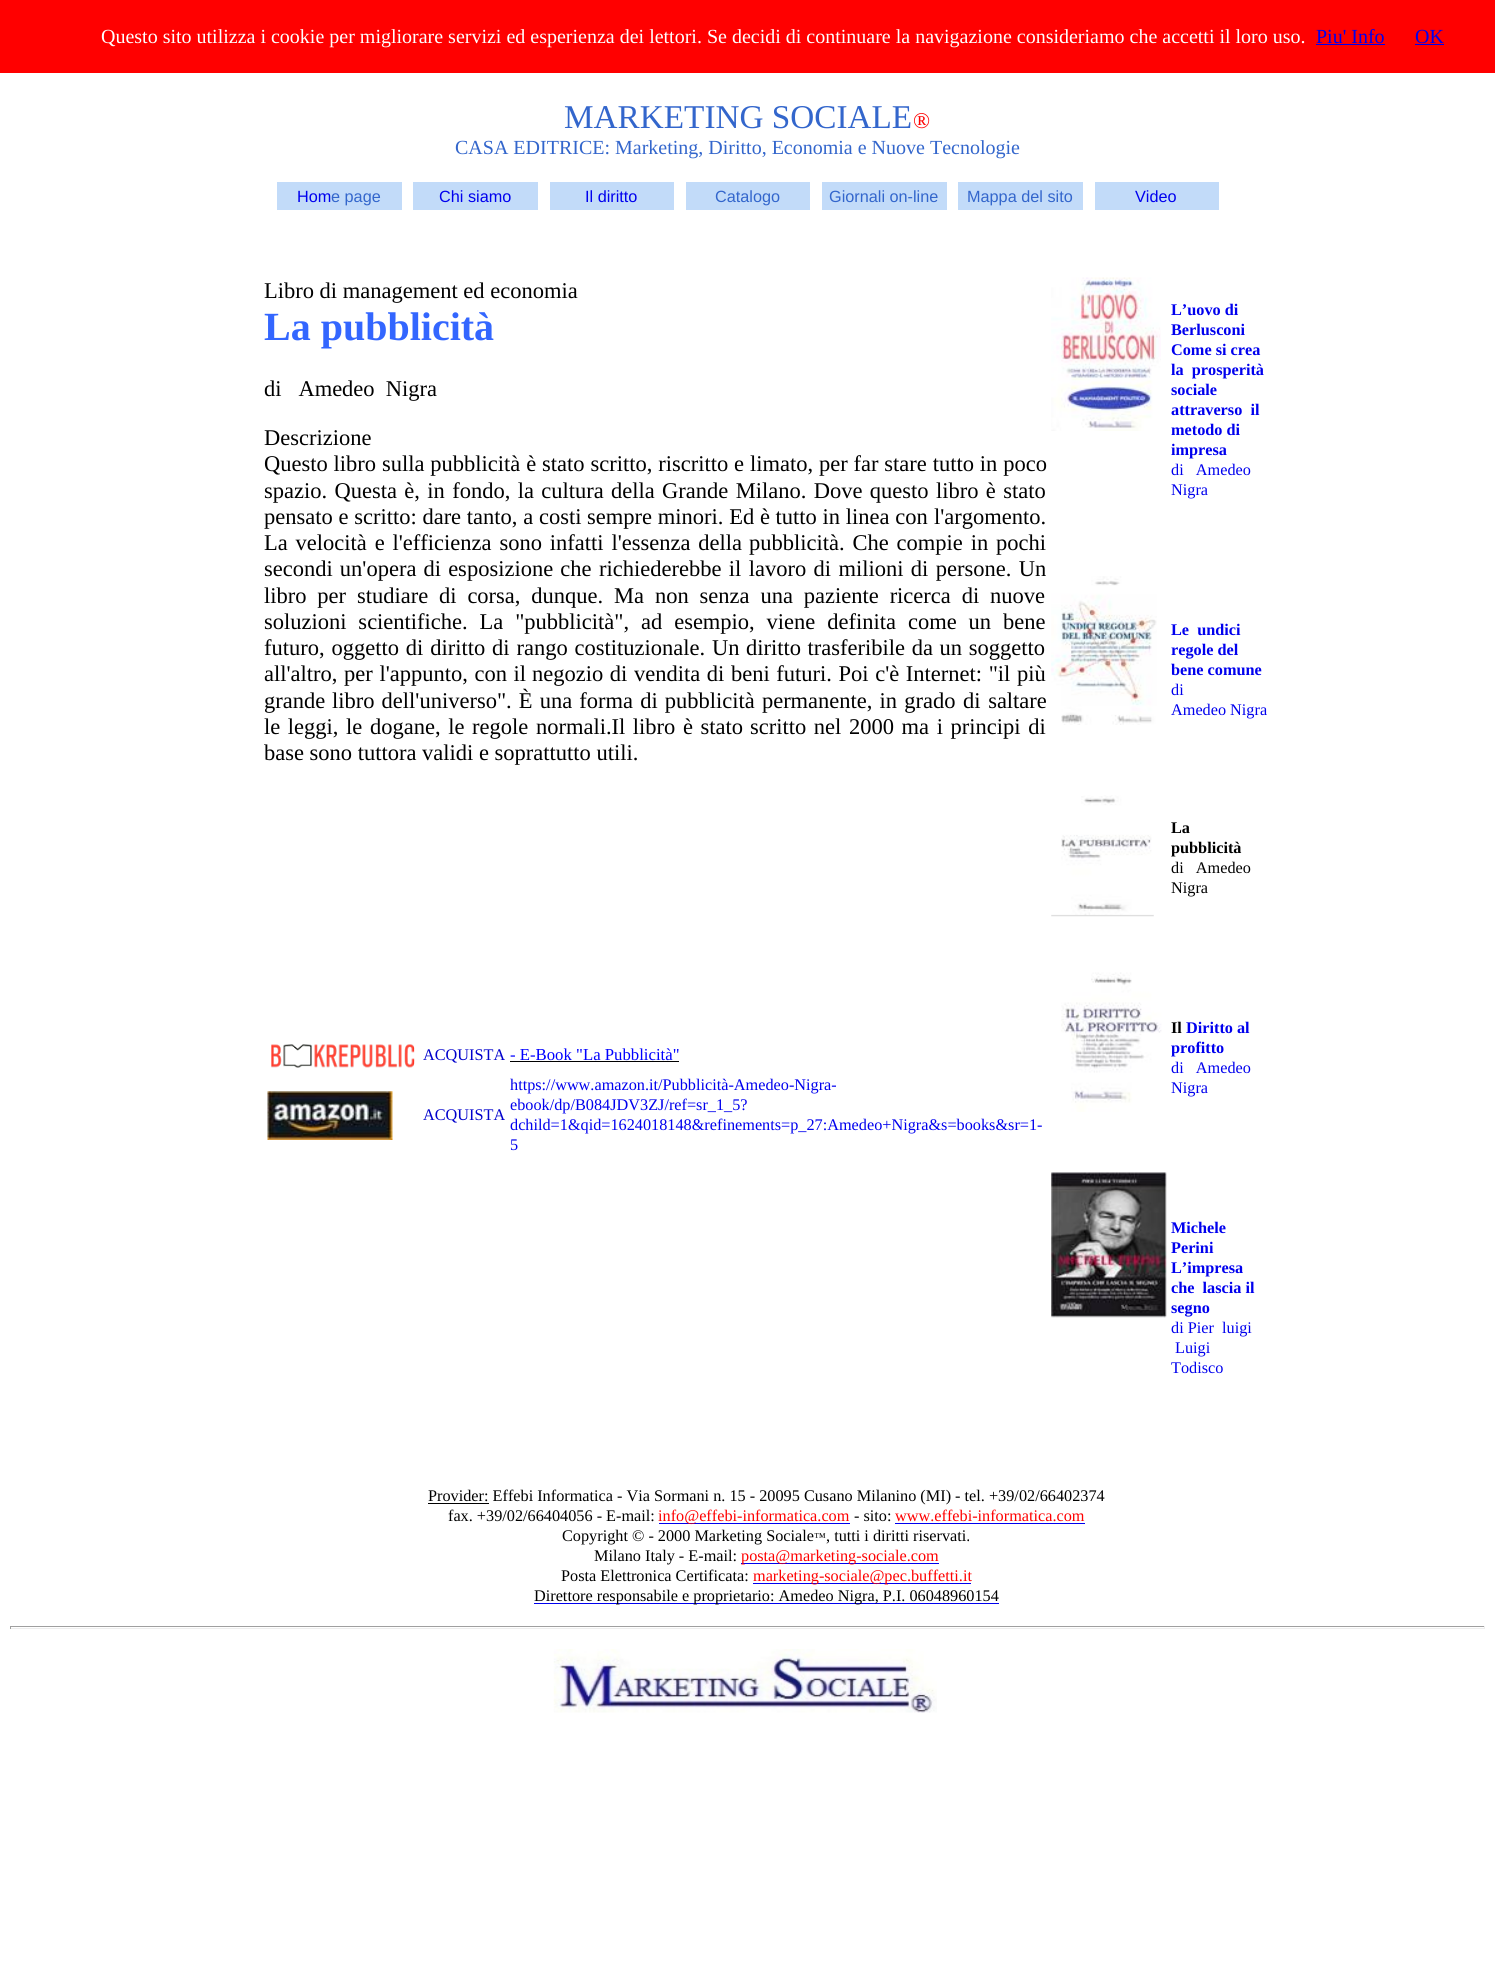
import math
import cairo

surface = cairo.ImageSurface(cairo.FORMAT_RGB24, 1495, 1973)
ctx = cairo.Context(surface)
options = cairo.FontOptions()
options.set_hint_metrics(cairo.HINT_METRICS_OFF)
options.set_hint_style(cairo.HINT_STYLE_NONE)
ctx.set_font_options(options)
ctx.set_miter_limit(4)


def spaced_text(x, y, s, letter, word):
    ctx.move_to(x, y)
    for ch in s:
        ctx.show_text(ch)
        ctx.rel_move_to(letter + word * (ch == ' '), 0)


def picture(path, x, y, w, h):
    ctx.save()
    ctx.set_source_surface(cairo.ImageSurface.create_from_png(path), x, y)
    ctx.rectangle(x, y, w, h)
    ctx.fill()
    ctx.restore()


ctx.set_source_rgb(1, 1, 1)
ctx.paint()
ctx.set_source_rgb(1, 0, 0)
ctx.rectangle(0, 0, 1495, 73)
ctx.fill()
ctx.select_font_face("Liberation Serif")
ctx.set_font_size(20)
ctx.set_source_rgb(1, 1, 1)
ctx.move_to(101, 43)
ctx.show_text("Questo sito utilizza i cookie per migliorare servizi ed esperienza dei lettori. Se decidi di continuare la navigazione consideriamo che accetti il loro uso.")
ctx.set_source_rgb(0, 0, 0.933)
ctx.move_to(1316, 43)
ctx.show_text("Piu' Info")
ctx.rectangle(1316, 44, 69, 1)
ctx.fill()
ctx.move_to(1415, 43)
ctx.show_text("OK")
ctx.rectangle(1415, 44, 29, 1)
ctx.fill()
ctx.set_font_size(33.25)
ctx.set_source_rgb(0.2, 0.4, 0.8)
ctx.move_to(564, 128)
ctx.show_text("MARKETING SOCIALE")
ctx.set_font_size(22.5)
ctx.set_source_rgb(1, 0, 0)
ctx.move_to(913, 128)
ctx.show_text("®")
ctx.set_font_size(20)
ctx.set_source_rgb(0.2, 0.4, 0.8)
ctx.move_to(455, 154)
ctx.show_text("CASA EDITRICE: Marketing, Diritto, Economia e Nuove Tecnologie")
ctx.set_source_rgb(0.761, 0.859, 0.973)
ctx.rectangle(277, 182, 125, 28)
ctx.fill()
ctx.select_font_face("Liberation Sans")
ctx.set_font_size(16.25)
ctx.set_source_rgb(0, 0, 0.933)
ctx.move_to(297, 202)
ctx.show_text("Hom")
ctx.set_source_rgb(0.2, 0.4, 0.8)
ctx.move_to(331, 202)
ctx.show_text("e page")
ctx.set_source_rgb(0.761, 0.859, 0.973)
ctx.rectangle(413, 182, 125, 28)
ctx.fill()
ctx.set_source_rgb(0, 0, 0.933)
ctx.move_to(439, 202)
ctx.show_text("Chi siamo")
ctx.set_source_rgb(0.761, 0.859, 0.973)
ctx.rectangle(550, 182, 124, 28)
ctx.fill()
ctx.set_source_rgb(0, 0, 0.933)
ctx.move_to(585, 202)
ctx.show_text("Il diritto")
ctx.set_source_rgb(0.761, 0.859, 0.973)
ctx.rectangle(686, 182, 124, 28)
ctx.fill()
ctx.set_source_rgb(0.2, 0.4, 0.8)
ctx.move_to(715, 202)
ctx.show_text("Catalogo")
ctx.set_source_rgb(0.761, 0.859, 0.973)
ctx.rectangle(822, 182, 125, 28)
ctx.fill()
ctx.set_source_rgb(0.2, 0.4, 0.8)
ctx.move_to(829, 202)
ctx.show_text("Giornali on-line")
ctx.set_source_rgb(0.761, 0.859, 0.973)
ctx.rectangle(958, 182, 125, 28)
ctx.fill()
ctx.set_source_rgb(0.2, 0.4, 0.8)
ctx.move_to(967, 202)
ctx.show_text("Mappa del sito")
ctx.set_source_rgb(0.761, 0.859, 0.973)
ctx.rectangle(1095, 182, 124, 28)
ctx.fill()
ctx.set_source_rgb(0, 0, 0.933)
ctx.move_to(1135, 202)
ctx.show_text("Video")
ctx.select_font_face("Liberation Serif")
ctx.set_font_size(22.5)
ctx.set_source_rgb(0, 0, 0)
ctx.move_to(264, 298)
ctx.show_text("Libro di management ed economia")
ctx.select_font_face("Liberation Serif", cairo.FONT_SLANT_NORMAL, cairo.FONT_WEIGHT_BOLD)
ctx.set_font_size(40)
ctx.set_source_rgb(0.2, 0.4, 1)
ctx.move_to(264, 340)
ctx.show_text("La pubblicità")
ctx.select_font_face("Liberation Serif")
ctx.set_font_size(22.5)
ctx.set_source_rgb(0, 0, 0)
ctx.move_to(264, 396)
ctx.show_text("di   Amedeo  Nigra")
ctx.move_to(264, 445)
ctx.show_text("Descrizione")
spaced_text(264, 471, "Questo libro sulla pubblicità è stato scritto, riscritto e limato, per far stare tutto in poco", 0, 0.25)
spaced_text(264, 498, "spazio. Questa è, in fondo, la cultura", 0, 1.75)
spaced_text(611, 498, "della Grande Milano. Dove questo libro è stato", 0, 1.75)
spaced_text(264, 524, "pensato e scritto: dare tanto, a costi sempre minori. Ed è tutto in linea con", 0, 0.1)
ctx.move_to(934, 524)
ctx.show_text("l'argomento.")
spaced_text(264, 550, "La velocità e l'efficienza sono infatti l'essenza della", 0, 2.25)
spaced_text(749, 550, "pubblicità. Che compie in pochi", 0, 2.25)
spaced_text(264, 576, "secondi un'opera di esposizione che", 0, 1.5)
spaced_text(599, 576, "richiederebbe il lavoro di milioni di persone. Un", 0, 1.75)
spaced_text(264, 603, "libro per studiare", 0, 5.25)
spaced_text(439, 603, "di corsa, dunque. Ma non senza una paziente ricerca di nuove", 0, 5.25)
spaced_text(264, 629, "soluzioni scientifiche. La \"pubblicità\", ad esempio, viene definita", 0, 6.25)
spaced_text(908, 629, "come un bene", 0, 6.25)
spaced_text(264, 655, "futuro, oggetto di diritto di rango costituzionale. Un", 0, 1.25)
spaced_text(746, 655, "diritto trasferibile da un soggetto", 0, 1)
spaced_text(264, 681, "all'altro, per l'appunto, con il", 0, 1)
spaced_text(532, 681, "negozio di vendita di beni futuri. Poi c'è Internet: \"il più", 0, 1)
ctx.move_to(264, 708)
ctx.show_text("grande")
spaced_text(332, 708, "libro dell'universo\". È una forma di pubblicità permanente, in grado", 0, 1.5)
spaced_text(963, 708, "di saltare", 0, 2)
spaced_text(264, 734, "le leggi, le dogane, le regole normali.Il libro è stato", 0, 2)
spaced_text(750, 734, "scritto nel 2000 ma i principi di", 0, 2)
ctx.move_to(264, 760)
ctx.show_text("base sono tuttora validi e soprattutto utili.")
picture("img1.png", 271, 1044, 144, 24)
ctx.set_font_size(16.25)
ctx.set_source_rgb(0, 0, 0.8)
ctx.move_to(423, 1060)
ctx.show_text("ACQUISTA")
ctx.set_font_size(16.75)
ctx.set_source_rgb(0, 0, 1)
ctx.move_to(510, 1060)
ctx.show_text("- E-Book \"La Pubblicità\"")
ctx.set_source_rgb(0, 0, 0)
ctx.rectangle(510, 1061, 169, 1)
ctx.fill()
picture("img2.png", 267, 1091, 126, 49)
ctx.set_font_size(16.25)
ctx.set_source_rgb(0, 0, 0.8)
ctx.move_to(423, 1120)
ctx.show_text("ACQUISTA")
ctx.set_source_rgb(0, 0, 0.933)
ctx.move_to(510, 1090)
ctx.show_text("https://www.amazon.it/Pubblicità-Amedeo-Nigra-")
ctx.move_to(510, 1110)
ctx.show_text("ebook/dp/B084JDV3ZJ/ref=sr_1_5?")
ctx.move_to(510, 1130)
ctx.show_text("dchild=1&qid=1624018148&refinements=p_27:Amedeo+Nigra&s=books&sr=1-")
ctx.move_to(510, 1150)
ctx.show_text("5")
picture("img3.png", 1051, 277, 110, 154)
ctx.select_font_face("Liberation Serif", cairo.FONT_SLANT_NORMAL, cairo.FONT_WEIGHT_BOLD)
ctx.move_to(1171, 315)
ctx.show_text("L’uovo di")
ctx.move_to(1171, 335)
ctx.show_text("Berlusconi")
ctx.move_to(1171, 355)
ctx.show_text("Come si crea")
ctx.move_to(1171, 375)
ctx.show_text("la  prosperità")
ctx.move_to(1171, 395)
ctx.show_text("sociale")
ctx.move_to(1171, 415)
ctx.show_text("attraverso  il")
ctx.move_to(1171, 435)
ctx.show_text("metodo di")
ctx.move_to(1171, 455)
ctx.show_text("impresa")
ctx.select_font_face("Liberation Serif")
ctx.move_to(1171, 475)
ctx.show_text("di   Amedeo")
ctx.move_to(1171, 495)
ctx.show_text("Nigra")
picture("img4.png", 1051, 576, 106, 149)
ctx.select_font_face("Liberation Serif", cairo.FONT_SLANT_NORMAL, cairo.FONT_WEIGHT_BOLD)
ctx.move_to(1171, 635)
ctx.show_text("Le  undici")
ctx.move_to(1171, 655)
ctx.show_text("regole del")
ctx.move_to(1171, 675)
ctx.show_text("bene comune")
ctx.select_font_face("Liberation Serif")
ctx.move_to(1171, 695)
ctx.show_text("di")
ctx.move_to(1171, 715)
ctx.show_text("Amedeo Nigra")
picture("img5.png", 1051, 795, 103, 122)
ctx.select_font_face("Liberation Serif", cairo.FONT_SLANT_NORMAL, cairo.FONT_WEIGHT_BOLD)
ctx.set_source_rgb(0, 0, 0)
ctx.move_to(1171, 833)
ctx.show_text("La")
ctx.move_to(1171, 853)
ctx.show_text("pubblicità")
ctx.select_font_face("Liberation Serif")
ctx.move_to(1171, 873)
ctx.show_text("di   Amedeo")
ctx.move_to(1171, 893)
ctx.show_text("Nigra")
picture("img6.png", 1061, 972, 101, 140)
ctx.select_font_face("Liberation Serif", cairo.FONT_SLANT_NORMAL, cairo.FONT_WEIGHT_BOLD)
ctx.move_to(1171, 1033)
ctx.show_text("Il")
ctx.set_source_rgb(0, 0, 0.933)
ctx.move_to(1186, 1033)
ctx.show_text("Diritto al")
ctx.move_to(1171, 1053)
ctx.show_text("profitto")
ctx.select_font_face("Liberation Serif")
ctx.move_to(1171, 1073)
ctx.show_text("di   Amedeo")
ctx.move_to(1171, 1093)
ctx.show_text("Nigra")
picture("img7.png", 1051, 1172, 116, 146)
ctx.select_font_face("Liberation Serif", cairo.FONT_SLANT_NORMAL, cairo.FONT_WEIGHT_BOLD)
ctx.move_to(1171, 1233)
ctx.show_text("Michele")
ctx.move_to(1171, 1253)
ctx.show_text("Perini")
ctx.move_to(1171, 1273)
ctx.show_text("L’impresa")
ctx.move_to(1171, 1293)
ctx.show_text("che  lascia il")
ctx.move_to(1171, 1313)
ctx.show_text("segno")
ctx.select_font_face("Liberation Serif")
ctx.move_to(1171, 1333)
ctx.show_text("di Pier  luigi")
ctx.move_to(1175, 1353)
ctx.show_text("Luigi")
ctx.move_to(1171, 1373)
ctx.show_text("Todisco")
ctx.set_source_rgb(0, 0, 0)
ctx.rectangle(428, 1503, 61, 1)
ctx.fill()
ctx.move_to(428, 1501)
ctx.show_text("Provider: Effebi Informatica - Via Sormani n. 15 - 20095 Cusano Milanino (MI) - tel. +39/02/66402374")
ctx.move_to(448, 1521)
ctx.show_text("fax. +39/02/66404056 - E-mail:")
ctx.set_source_rgb(0, 0, 0.933)
ctx.rectangle(659, 1523, 191, 1)
ctx.fill()
ctx.set_source_rgb(1, 0, 0)
ctx.move_to(658, 1521)
ctx.show_text("info@effebi-informatica.com")
ctx.set_source_rgb(0, 0, 0)
ctx.move_to(854, 1521)
ctx.show_text("- sito:")
ctx.set_source_rgb(1, 0, 0)
ctx.move_to(895, 1521)
ctx.show_text("www.effebi-informatica.com")
ctx.set_source_rgb(0, 0, 0.933)
ctx.rectangle(895, 1523, 190, 1)
ctx.fill()
ctx.set_source_rgb(0, 0, 0)
ctx.move_to(562, 1541)
ctx.show_text("Copyright © - 2000 Marketing Sociale")
ctx.set_font_size(12)
ctx.move_to(814, 1541)
ctx.show_text("™")
ctx.set_font_size(16.25)
ctx.move_to(826, 1541)
ctx.show_text(", tutti i diritti riservati.")
ctx.move_to(594, 1561)
ctx.show_text("Milano Italy - E-mail:")
ctx.set_source_rgb(0, 0, 0.933)
ctx.rectangle(741, 1563, 198, 1)
ctx.fill()
ctx.set_source_rgb(1, 0, 0)
ctx.move_to(741, 1561)
ctx.show_text("posta@marketing-sociale.com")
ctx.set_source_rgb(0, 0, 0)
ctx.move_to(561, 1581)
ctx.show_text("Posta Elettronica Certificata:")
ctx.set_source_rgb(0, 0, 0.933)
ctx.rectangle(753, 1583, 218, 1)
ctx.fill()
ctx.set_source_rgb(1, 0, 0)
ctx.move_to(753, 1581)
ctx.show_text("marketing-sociale@pec.buffetti.it")
ctx.set_source_rgb(0, 0, 0.933)
ctx.rectangle(534, 1603, 465, 1)
ctx.fill()
ctx.set_source_rgb(0, 0, 0)
ctx.move_to(534, 1601)
ctx.show_text("Direttore responsabile e proprietario: Amedeo Nigra, P.I. 06048960154")
ctx.set_source_rgb(0.624, 0.624, 0.624)
ctx.rectangle(10, 1626, 1475, 1)
ctx.fill()
ctx.set_source_rgb(0.933, 0.933, 0.933)
ctx.rectangle(1484, 1626, 1, 3)
ctx.fill()
ctx.rectangle(10, 1628, 1475, 1)
ctx.fill()
ctx.set_source_rgb(0.624, 0.624, 0.624)
ctx.rectangle(10, 1626, 1, 3)
ctx.fill()
picture("img8.png", 553, 1649, 384, 64)
surface.write_to_png("page.png")
